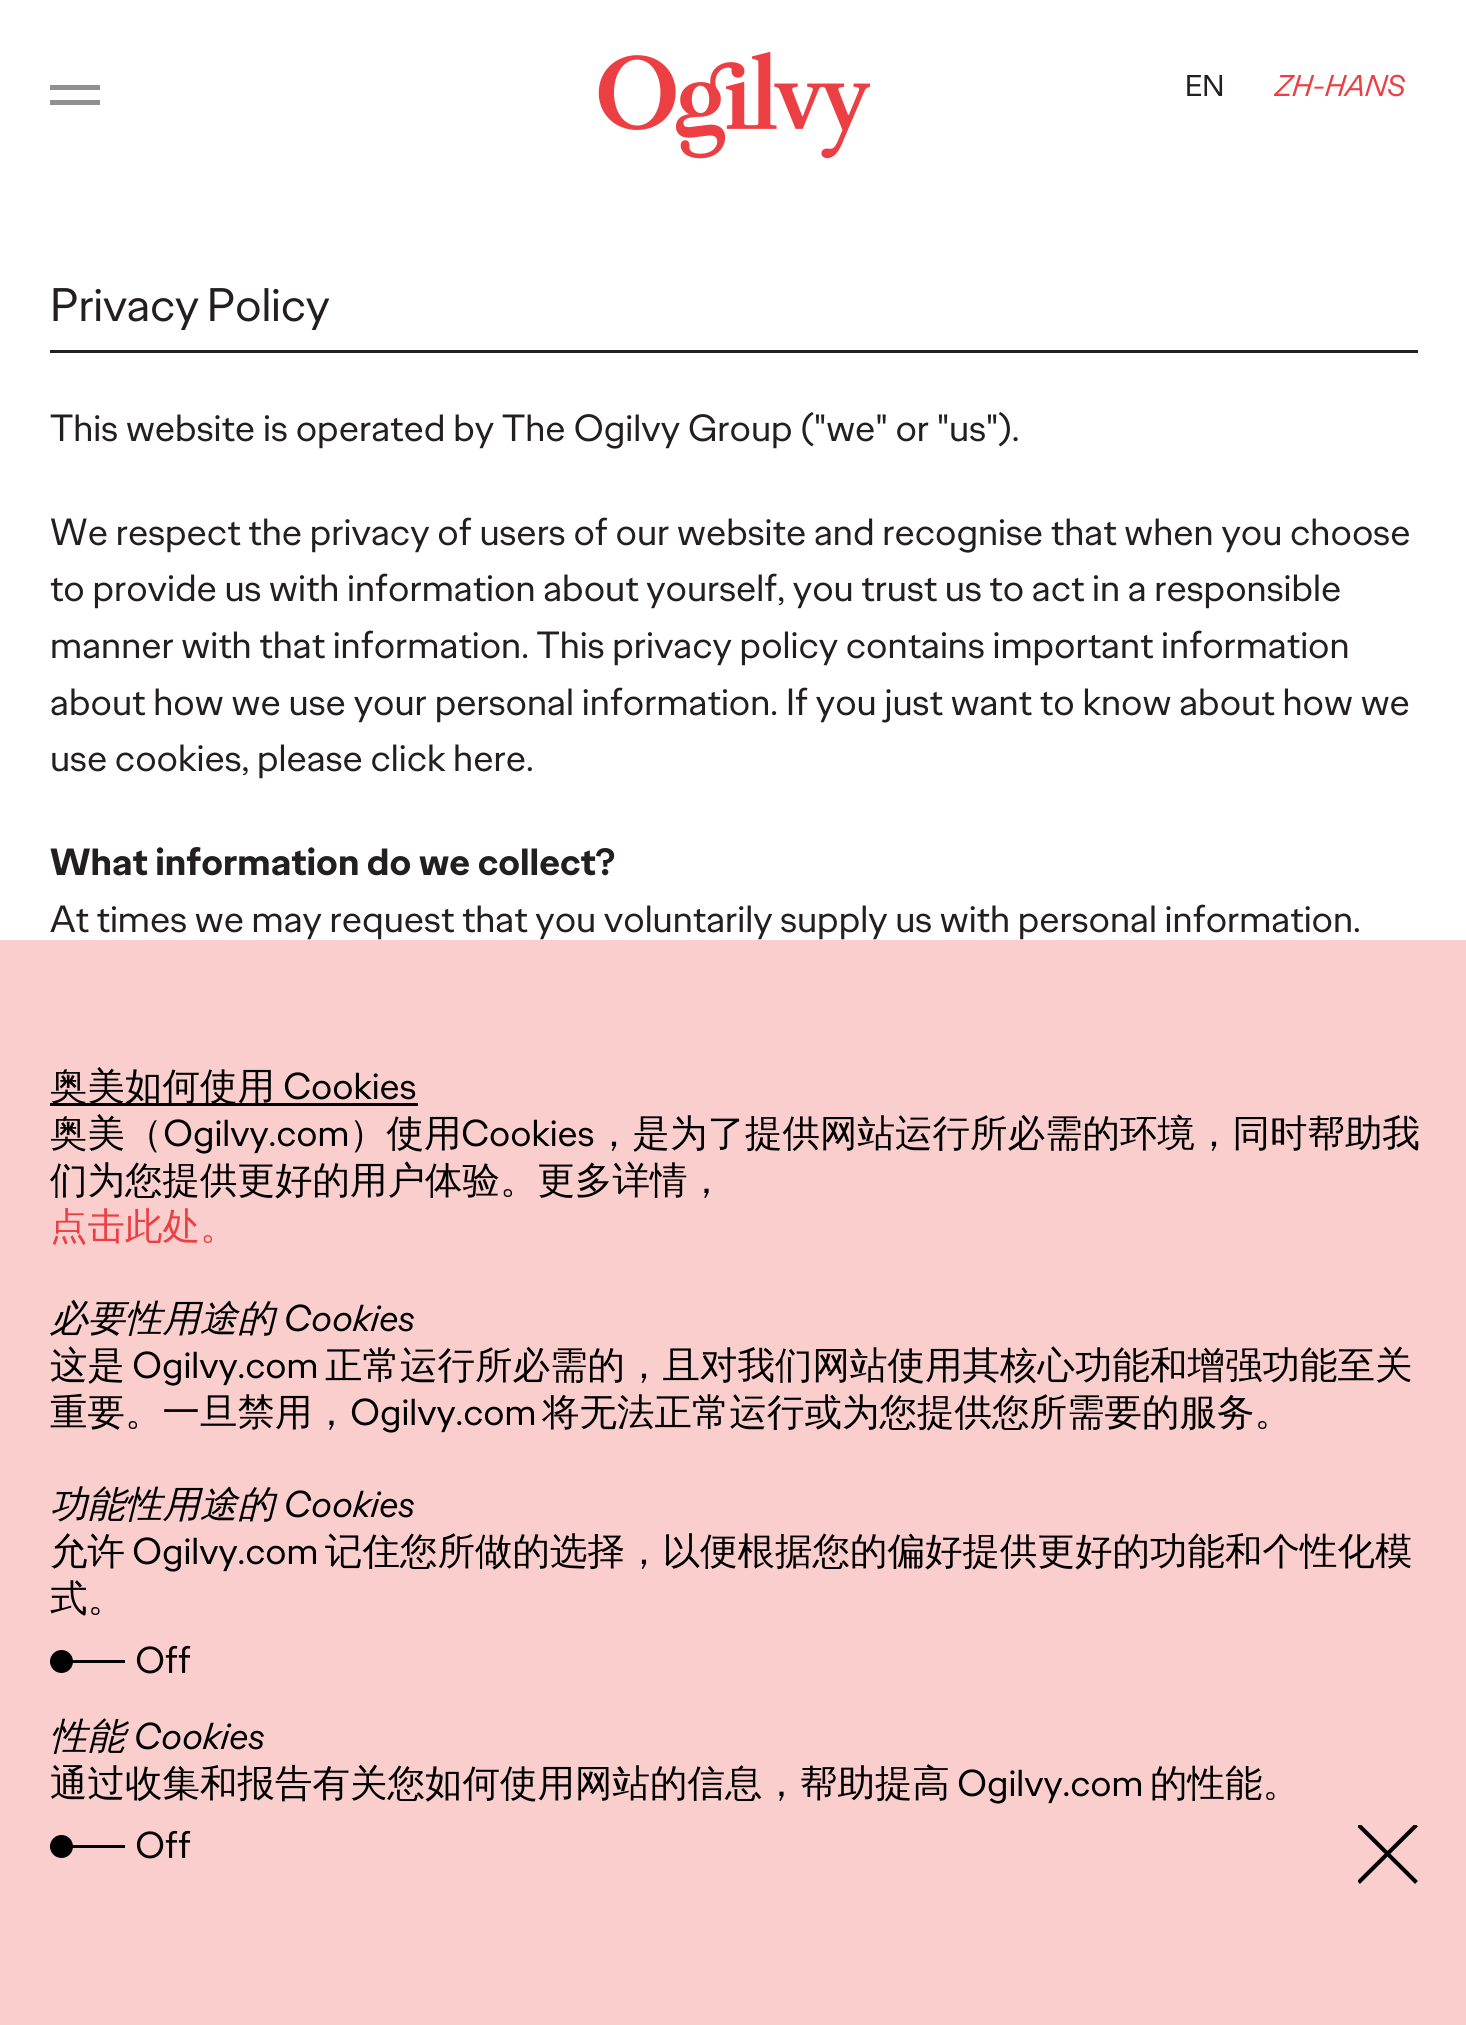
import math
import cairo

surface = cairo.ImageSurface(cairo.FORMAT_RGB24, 1466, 2025)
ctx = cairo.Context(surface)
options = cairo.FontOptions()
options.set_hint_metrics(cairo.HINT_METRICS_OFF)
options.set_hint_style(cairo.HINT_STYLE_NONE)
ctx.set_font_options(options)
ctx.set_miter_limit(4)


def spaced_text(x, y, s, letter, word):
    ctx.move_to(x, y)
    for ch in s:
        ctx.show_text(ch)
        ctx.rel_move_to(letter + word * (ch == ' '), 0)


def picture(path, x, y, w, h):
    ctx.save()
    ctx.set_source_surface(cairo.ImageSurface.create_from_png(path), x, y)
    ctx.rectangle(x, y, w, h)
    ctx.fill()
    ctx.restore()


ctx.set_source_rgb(1, 1, 1)
ctx.paint()
ctx.set_source_rgb(0.569, 0.561, 0.565)
ctx.rectangle(50, 85, 50, 5)
ctx.fill()
ctx.rectangle(50, 100, 50, 5)
ctx.fill()
picture("img1.png", 598, 51, 272, 108)
ctx.select_font_face("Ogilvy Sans")
ctx.set_font_size(30)
ctx.set_source_rgb(0.137, 0.122, 0.125)
ctx.move_to(1185, 96)
ctx.show_text("EN")
ctx.select_font_face("Ogilvy Sans", cairo.FONT_SLANT_ITALIC)
ctx.set_source_rgb(0.922, 0.247, 0.263)
ctx.move_to(1275, 96)
ctx.show_text("ZH-HANS")
ctx.set_source_rgb(0.137, 0.122, 0.125)
ctx.rectangle(50, 350, 1368, 3)
ctx.fill()
ctx.select_font_face("Ogilvy Sans")
ctx.set_font_size(47)
spaced_text(50, 321, "Privacy Policy", -0.25, -2)
ctx.set_font_size(37.85)
spaced_text(50, 441, "This website is operated by The Ogilvy Group (\"we\" or \"us\").", 0, -0.25)
spaced_text(50, 545, "We respect the privacy of users of our website and recognise that when you choose", 0, -0.4)
spaced_text(50, 601, "to provide us with information about yourself, you trust us to act in a responsible", 0, -0.5)
spaced_text(50, 658, "manner with that information. This privacy policy contains important information", 0, -0.5)
spaced_text(50, 715, "about how we use your personal information. If you just want to know about how we", 0, -0.25)
spaced_text(50, 771, "use cookies, please click here.", 0, -0.5)
ctx.select_font_face("Ogilvy Sans", cairo.FONT_SLANT_NORMAL, cairo.FONT_WEIGHT_BOLD)
spaced_text(50, 875, "What information do we collect?", 0, -0.5)
ctx.select_font_face("Ogilvy Sans")
spaced_text(50, 932, "At times we may request that you voluntarily supply us with personal information.", 0, -0.5)
ctx.set_source_rgb(0.984, 0.808, 0.808)
ctx.rectangle(0, 940, 1466, 1085)
ctx.fill()
ctx.set_source_rgb(0, 0, 0)
ctx.rectangle(50, 1103, 368, 3)
ctx.fill()
ctx.select_font_face("WenQuanYi Zen Hei Medium")
ctx.set_font_size(37.5)
ctx.move_to(50, 1099)
ctx.show_text("奥美如何使用")
ctx.select_font_face("Ogilvy Sans")
ctx.move_to(283, 1099)
ctx.show_text("Cookies")
ctx.select_font_face("WenQuanYi Zen Hei Medium")
ctx.move_to(50, 1146)
ctx.show_text("奥美（")
ctx.select_font_face("Ogilvy Sans")
ctx.move_to(163, 1146)
ctx.show_text("Ogilvy.com")
ctx.select_font_face("WenQuanYi Zen Hei Medium")
ctx.move_to(349, 1146)
ctx.show_text("）使用")
ctx.select_font_face("Ogilvy Sans")
ctx.move_to(461, 1146)
ctx.show_text("Cookies")
ctx.select_font_face("WenQuanYi Zen Hei Medium")
ctx.move_to(595, 1146)
ctx.show_text("，是为了提供网站运行所必需的环境，同时帮助我")
ctx.move_to(50, 1193)
ctx.show_text("们为您提供更好的用户体验。更多详情，")
ctx.set_source_rgb(0.922, 0.247, 0.263)
ctx.move_to(50, 1239)
ctx.show_text("点击此处。")
ctx.select_font_face("WenQuanYi Zen Hei Medium", cairo.FONT_SLANT_ITALIC)
ctx.set_source_rgb(0, 0, 0)
ctx.move_to(50, 1331)
ctx.show_text("必要性用途的")
ctx.select_font_face("Ogilvy Sans", cairo.FONT_SLANT_ITALIC)
ctx.move_to(283, 1331)
ctx.show_text("Cookies")
ctx.select_font_face("WenQuanYi Zen Hei Medium")
ctx.move_to(50, 1378)
ctx.show_text("这是")
ctx.select_font_face("Ogilvy Sans")
ctx.move_to(132, 1378)
ctx.show_text("Ogilvy.com")
ctx.select_font_face("WenQuanYi Zen Hei Medium")
ctx.move_to(325, 1378)
ctx.show_text("正常运行所必需的，且对我们网站使用其核心功能和增强功能至关")
ctx.move_to(50, 1425)
ctx.show_text("重要。一旦禁用，")
ctx.select_font_face("Ogilvy Sans")
ctx.move_to(350, 1425)
ctx.show_text("Ogilvy.com")
ctx.select_font_face("WenQuanYi Zen Hei Medium")
ctx.move_to(542, 1425)
ctx.show_text("将无法正常运行或为您提供您所需要的服务。")
ctx.select_font_face("WenQuanYi Zen Hei Medium", cairo.FONT_SLANT_ITALIC)
ctx.move_to(50, 1517)
ctx.show_text("功能性用途的")
ctx.select_font_face("Ogilvy Sans", cairo.FONT_SLANT_ITALIC)
ctx.move_to(283, 1517)
ctx.show_text("Cookies")
ctx.select_font_face("WenQuanYi Zen Hei Medium")
ctx.move_to(50, 1564)
ctx.show_text("允许")
ctx.select_font_face("Ogilvy Sans")
ctx.move_to(132, 1564)
ctx.show_text("Ogilvy.com")
ctx.select_font_face("WenQuanYi Zen Hei Medium")
ctx.move_to(325, 1564)
ctx.show_text("记住您所做的选择，以便根据您的偏好提供更好的功能和个性化模")
ctx.move_to(50, 1611)
ctx.show_text("式。")
ctx.rectangle(50, 1660, 75, 3)
ctx.fill()
ctx.arc(61.5, 1661.5, 11.5, 0, 2 * math.pi)
ctx.fill()
ctx.select_font_face("Ogilvy Sans")
ctx.set_source_rgb(0.031, 0.024, 0.024)
ctx.move_to(135, 1673)
ctx.show_text("Off")
ctx.select_font_face("WenQuanYi Zen Hei Medium", cairo.FONT_SLANT_ITALIC)
ctx.set_source_rgb(0, 0, 0)
ctx.move_to(50, 1749)
ctx.show_text("性能")
ctx.select_font_face("Ogilvy Sans", cairo.FONT_SLANT_ITALIC)
ctx.move_to(133, 1749)
ctx.show_text("Cookies")
ctx.select_font_face("WenQuanYi Zen Hei Medium")
ctx.move_to(50, 1796)
ctx.show_text("通过收集和报告有关您如何使用网站的信息，帮助提高")
ctx.select_font_face("Ogilvy Sans")
ctx.move_to(957, 1796)
ctx.show_text("Ogilvy.com")
ctx.select_font_face("WenQuanYi Zen Hei Medium")
ctx.move_to(1150, 1796)
ctx.show_text("的性能。")
ctx.rectangle(50, 1845, 75, 3)
ctx.fill()
ctx.arc(61.5, 1846.5, 11.5, 0, 2 * math.pi)
ctx.fill()
ctx.select_font_face("Ogilvy Sans")
ctx.set_source_rgb(0.031, 0.024, 0.024)
ctx.move_to(135, 1858)
ctx.show_text("Off")
ctx.save()
ctx.rectangle(1358, 1825, 60, 60)
ctx.clip()
ctx.new_path()
ctx.move_to(1358.5, 1825)
ctx.line_to(1416.5, 1882.5)
ctx.move_to(1416.5, 1825)
ctx.line_to(1358.5, 1882.5)
ctx.set_source_rgb(0, 0, 0)
ctx.set_line_width(4.1)
ctx.stroke()
ctx.restore()
surface.write_to_png("page.png")
